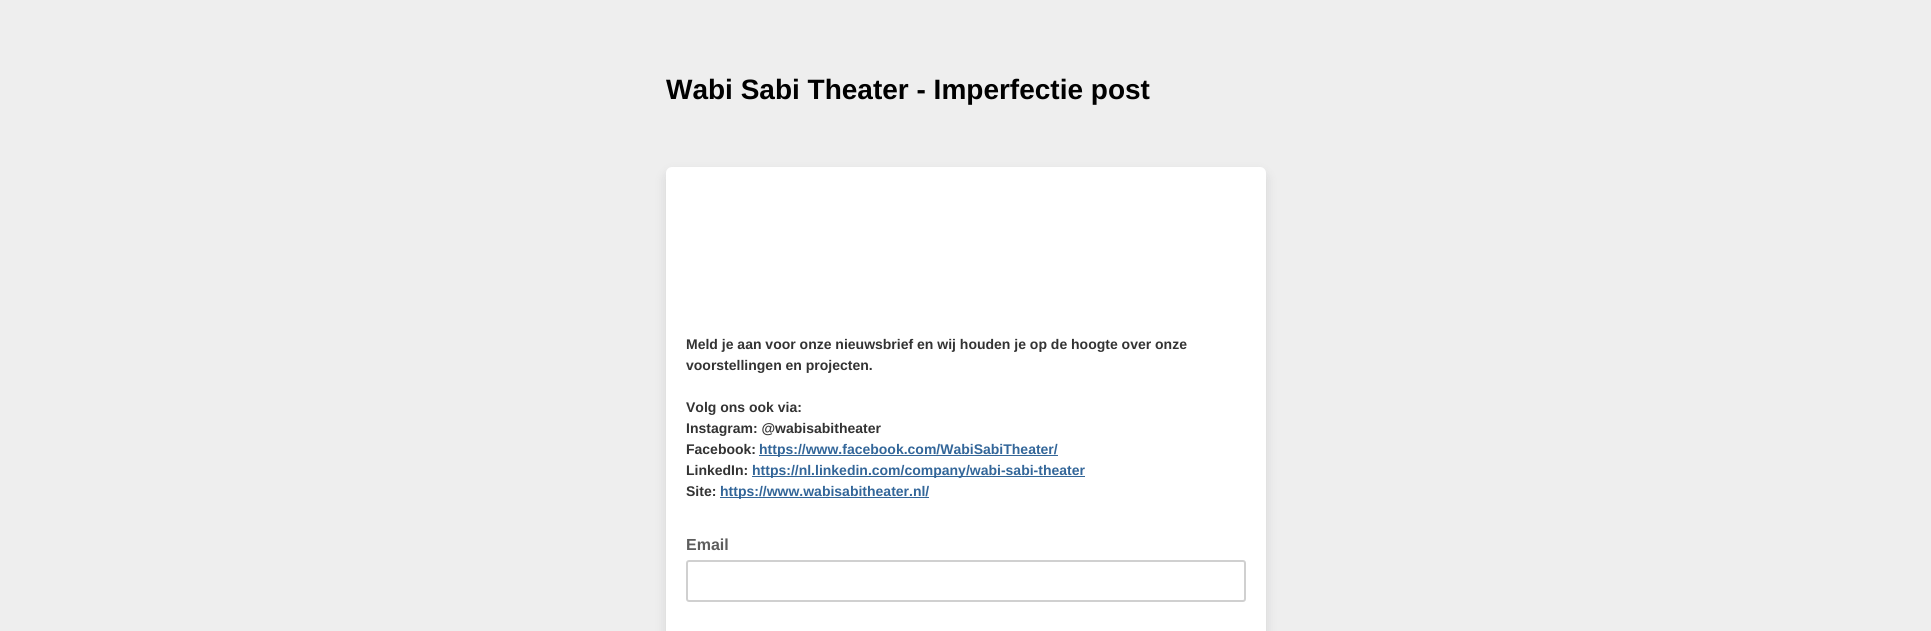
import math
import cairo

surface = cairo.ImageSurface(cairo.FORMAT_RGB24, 1931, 631)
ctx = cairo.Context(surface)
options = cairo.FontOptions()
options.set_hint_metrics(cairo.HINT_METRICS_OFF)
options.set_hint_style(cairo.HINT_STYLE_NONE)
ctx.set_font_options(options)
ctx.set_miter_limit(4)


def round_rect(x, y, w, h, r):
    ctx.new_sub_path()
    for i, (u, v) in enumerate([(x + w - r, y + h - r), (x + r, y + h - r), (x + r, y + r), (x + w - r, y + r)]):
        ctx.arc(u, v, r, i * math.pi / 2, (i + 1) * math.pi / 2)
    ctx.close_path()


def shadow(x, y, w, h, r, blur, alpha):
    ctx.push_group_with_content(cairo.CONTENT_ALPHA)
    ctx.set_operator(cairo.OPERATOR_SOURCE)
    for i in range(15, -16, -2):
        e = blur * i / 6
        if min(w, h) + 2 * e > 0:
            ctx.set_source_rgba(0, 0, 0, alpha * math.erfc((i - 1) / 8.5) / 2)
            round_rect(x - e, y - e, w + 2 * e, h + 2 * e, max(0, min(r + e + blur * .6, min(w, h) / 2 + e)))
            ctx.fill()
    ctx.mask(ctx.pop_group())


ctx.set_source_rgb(0.933, 0.933, 0.933)
ctx.paint()
ctx.select_font_face("Liberation Sans", cairo.FONT_SLANT_NORMAL, cairo.FONT_WEIGHT_BOLD)
ctx.set_font_size(28)
ctx.set_source_rgb(0, 0, 0)
ctx.move_to(666, 99)
ctx.show_text("Wabi Sabi Theater - Imperfectie post")
ctx.set_source_rgb(0.051, 0.071, 0.086)
shadow(666, 173, 600, 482, 6, 6, 0.12)
ctx.set_source_rgb(1, 1, 1)
round_rect(666, 167, 600, 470, 6)
ctx.fill()
ctx.set_font_size(14)
ctx.set_source_rgb(0.2, 0.2, 0.2)
ctx.move_to(686, 349)
ctx.show_text("Meld je aan voor onze nieuwsbrief en wij houden je op de hoogte over onze")
ctx.move_to(686, 370)
ctx.show_text("voorstellingen en projecten.")
ctx.move_to(686, 412)
ctx.show_text("Volg ons ook via:")
ctx.move_to(686, 433)
ctx.show_text("Instagram: @wabisabitheater")
ctx.move_to(686, 454)
ctx.show_text("Facebook:")
ctx.set_source_rgb(0.2, 0.4, 0.6)
ctx.rectangle(759, 455, 299, 1)
ctx.fill()
ctx.move_to(759, 454)
ctx.show_text("https://www.facebook.com/WabiSabiTheater/")
ctx.set_source_rgb(0.2, 0.2, 0.2)
ctx.move_to(686, 475)
ctx.show_text("LinkedIn:")
ctx.set_source_rgb(0.2, 0.4, 0.6)
ctx.rectangle(752, 476, 333, 1)
ctx.fill()
ctx.move_to(752, 475)
ctx.show_text("https://nl.linkedin.com/company/wabi-sabi-theater")
ctx.set_source_rgb(0.2, 0.2, 0.2)
ctx.move_to(686, 496)
ctx.show_text("Site:")
ctx.set_source_rgb(0.2, 0.4, 0.6)
ctx.rectangle(720, 497, 209, 1)
ctx.fill()
ctx.move_to(720, 496)
ctx.show_text("https://www.wabisabitheater.nl/")
ctx.set_font_size(16)
ctx.set_source_rgb(0.365, 0.365, 0.365)
ctx.move_to(686, 550)
ctx.show_text("Email")
round_rect(687, 561, 558, 40, 2)
ctx.set_source_rgb(0.816, 0.816, 0.816)
ctx.stroke()
surface.write_to_png("page.png")
